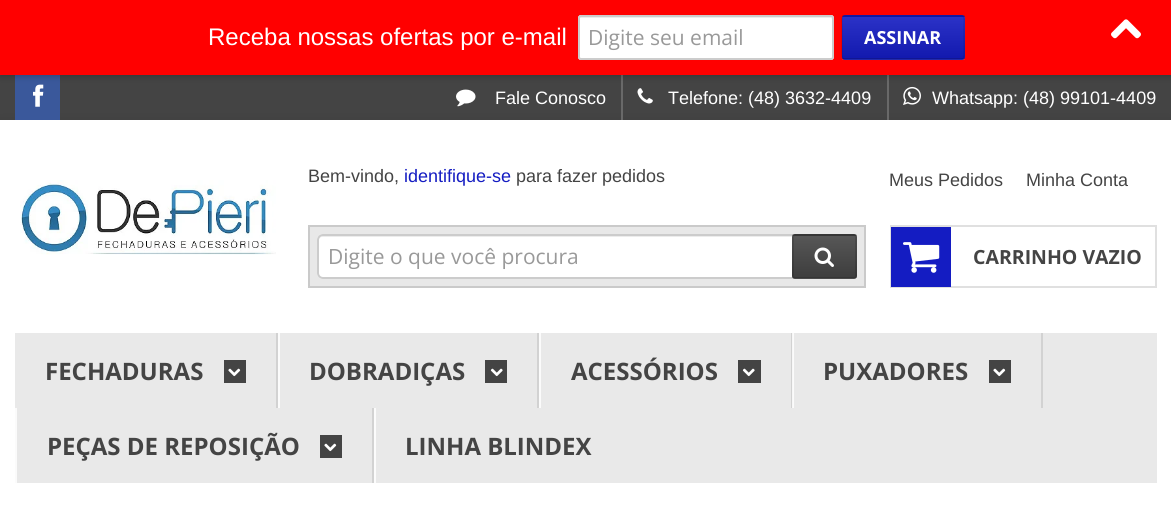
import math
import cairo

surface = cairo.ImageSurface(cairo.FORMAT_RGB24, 1171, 512)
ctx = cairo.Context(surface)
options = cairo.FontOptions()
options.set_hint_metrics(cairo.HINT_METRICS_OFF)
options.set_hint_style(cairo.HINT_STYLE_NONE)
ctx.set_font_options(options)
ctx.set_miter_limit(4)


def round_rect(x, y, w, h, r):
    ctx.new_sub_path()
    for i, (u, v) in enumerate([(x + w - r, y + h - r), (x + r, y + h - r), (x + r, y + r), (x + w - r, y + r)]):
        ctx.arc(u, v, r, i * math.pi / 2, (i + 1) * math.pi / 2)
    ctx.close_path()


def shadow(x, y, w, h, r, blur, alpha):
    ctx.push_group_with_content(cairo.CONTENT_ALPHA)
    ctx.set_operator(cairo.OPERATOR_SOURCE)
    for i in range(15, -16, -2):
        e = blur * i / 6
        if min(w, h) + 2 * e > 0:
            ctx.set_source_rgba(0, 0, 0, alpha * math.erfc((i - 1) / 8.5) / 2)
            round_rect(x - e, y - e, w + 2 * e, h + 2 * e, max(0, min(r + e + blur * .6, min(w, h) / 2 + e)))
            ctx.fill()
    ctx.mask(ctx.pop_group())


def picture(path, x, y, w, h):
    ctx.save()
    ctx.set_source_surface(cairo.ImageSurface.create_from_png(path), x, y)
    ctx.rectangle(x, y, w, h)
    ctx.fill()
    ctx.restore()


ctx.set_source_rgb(0.267, 0.267, 0.267)
ctx.paint()
ctx.set_source_rgb(0, 0, 0)
shadow(0, 125, 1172, 378, 0, 7.5, 0.15)
ctx.set_source_rgb(0.227, 0.345, 0.608)
ctx.rectangle(15, 75, 45, 45)
ctx.fill()
picture("img2.png", 33, 84, 11, 23)
ctx.set_source_rgb(0.412, 0.412, 0.412)
ctx.rectangle(621, 75, 2, 45)
ctx.fill()
ctx.rectangle(887, 75, 2, 45)
ctx.fill()
picture("img5.png", 903, 86, 18, 19)
ctx.set_source_rgb(0, 0, 0)
shadow(0, 0, 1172, 75, 0, 4, 0.3)
ctx.set_source_rgb(1, 0, 0)
ctx.rectangle(0, 0, 1171, 75)
ctx.fill()
ctx.select_font_face("Liberation Sans")
ctx.set_font_size(24)
ctx.set_source_rgb(1, 1, 1)
ctx.move_to(208, 45)
ctx.show_text("Receba nossas ofertas por e-mail")
round_rect(578, 15, 256, 45, 3)
ctx.fill()
ctx.set_source_rgb(0.925, 0.925, 0.925)
ctx.new_path()
ctx.move_to(580, 18)
ctx.line_to(831, 18)
ctx.curve_to(833, 18, 832, 30, 832, 33)
ctx.line_to(832, 59)
ctx.curve_to(833, 59, 833, 58, 833, 58)
ctx.line_to(833, 18)
ctx.curve_to(833, 18, 832, 17, 832, 17)
ctx.line_to(580, 17)
ctx.curve_to(580, 17, 579, 18, 579, 18)
ctx.line_to(579, 20)
ctx.close_path()
ctx.fill()
round_rect(579, 16, 254, 43, 2)
ctx.set_source_rgb(0.8, 0.8, 0.8)
ctx.stroke()
ctx.select_font_face("Open Sans")
ctx.set_font_size(21)
ctx.set_source_rgb(0.6, 0.6, 0.6)
ctx.move_to(588, 45)
ctx.show_text("Digite seu email")
ctx.set_source_rgb(0.082, 0.11, 0.761)
round_rect(842, 15, 123, 45, 3)
ctx.fill()
gradient = cairo.LinearGradient(903, -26, 903, 17)
gradient.add_color_stop_rgba(0, 1, 1, 1, 0.1)
gradient.add_color_stop_rgba(1, 0, 0, 0, 0.1)
ctx.set_source(gradient)
ctx.rectangle(842, 15, 123, 2)
ctx.fill()
gradient = cairo.LinearGradient(903, 16, 903, 59)
gradient.add_color_stop_rgba(0, 1, 1, 1, 0.1)
gradient.add_color_stop_rgba(1, 0, 0, 0, 0.1)
ctx.set_source(gradient)
ctx.rectangle(842, 17, 123, 42)
ctx.fill()
gradient = cairo.LinearGradient(903, 58, 903, 101)
gradient.add_color_stop_rgba(0, 1, 1, 1, 0.1)
gradient.add_color_stop_rgba(1, 0, 0, 0, 0.1)
ctx.set_source(gradient)
ctx.rectangle(842, 59, 123, 1)
ctx.fill()
ctx.new_path()
ctx.move_to(963, 58.5)
ctx.line_to(961.5, 59)
ctx.line_to(844.5, 59)
ctx.line_to(843, 58.5)
ctx.set_source_rgba(0, 0, 0, 0.2)
ctx.set_line_width(1.5)
ctx.stroke()
ctx.new_path()
ctx.move_to(843, 58.5)
ctx.curve_to(841, 57, 842, 40.5, 842, 37.5)
ctx.line_to(842, 24.5)
ctx.curve_to(842, 23.5, 840.5, 16, 844.5, 16)
ctx.line_to(961.5, 16)
ctx.curve_to(965.5, 16, 964, 23.5, 964, 24.5)
ctx.line_to(964, 37.5)
ctx.curve_to(964, 40.5, 965, 57, 963, 58.5)
ctx.set_source_rgba(0, 0, 0, 0.1)
ctx.stroke()
ctx.select_font_face("Open Sans", cairo.FONT_SLANT_NORMAL, cairo.FONT_WEIGHT_BOLD)
ctx.set_font_size(18)
ctx.set_source_rgb(1, 1, 1)
ctx.move_to(864, 44)
ctx.show_text("ASSINAR")
picture("img1.png", 1111, 19, 30, 20)
picture("img3.png", 456, 89, 20, 18)
ctx.select_font_face("Liberation Sans")
ctx.move_to(495, 104)
ctx.show_text("Fale Conosco")
picture("img4.png", 637, 88, 16, 16)
ctx.move_to(668, 104)
ctx.show_text("Telefone: (48) 3632-4409")
ctx.move_to(932, 104)
ctx.show_text("Whatsapp: (48) 99101-4409")
ctx.rectangle(0, 120, 1171, 392)
ctx.fill()
picture("img6.png", 20, 180, 256, 75)
ctx.set_source_rgb(0.267, 0.267, 0.267)
ctx.move_to(308, 182)
ctx.show_text("Bem-vindo,")
ctx.set_source_rgb(0.082, 0.11, 0.761)
ctx.move_to(404, 182)
ctx.show_text("identifique-se")
ctx.set_source_rgb(0.267, 0.267, 0.267)
ctx.move_to(516, 182)
ctx.show_text("para fazer pedidos")
ctx.move_to(889, 186)
ctx.show_text("Meus Pedidos")
ctx.move_to(1026, 186)
ctx.show_text("Minha Conta")
ctx.set_source_rgb(0.91, 0.91, 0.91)
ctx.rectangle(309, 226, 556, 61)
ctx.fill_preserve()
ctx.set_source_rgb(0.792, 0.792, 0.792)
ctx.set_line_width(2)
ctx.stroke()
ctx.set_source_rgb(1, 1, 1)
round_rect(317, 234, 529, 45, 6)
ctx.fill()
ctx.set_source_rgb(0.925, 0.925, 0.925)
ctx.new_path()
ctx.move_to(322, 237)
ctx.line_to(840, 237)
ctx.curve_to(842, 237, 844, 239, 844, 242)
ctx.line_to(844, 274)
ctx.line_to(843, 277)
ctx.curve_to(844, 276, 845, 274, 845, 273)
ctx.line_to(845, 241)
ctx.curve_to(845, 238, 843, 236, 840, 236)
ctx.line_to(323, 236)
ctx.curve_to(320, 236, 318, 238, 318, 241)
ctx.line_to(318, 242)
ctx.curve_to(318, 239, 320, 237, 322, 237)
ctx.close_path()
ctx.fill()
round_rect(318, 235, 527, 43, 5)
ctx.set_source_rgb(0.8, 0.8, 0.8)
ctx.stroke()
ctx.select_font_face("Open Sans")
ctx.set_font_size(21)
ctx.set_source_rgb(0.6, 0.6, 0.6)
ctx.move_to(328, 264)
ctx.show_text("Digite o que você procura")
ctx.set_source_rgb(0.267, 0.267, 0.267)
round_rect(792, 234, 65, 45, 3)
ctx.fill()
gradient = cairo.LinearGradient(824, 194, 824, 236)
gradient.add_color_stop_rgba(0, 1, 1, 1, 0.1)
gradient.add_color_stop_rgba(1, 0, 0, 0, 0.1)
ctx.set_source(gradient)
ctx.rectangle(792, 234, 65, 2)
ctx.fill()
gradient = cairo.LinearGradient(824, 236, 824, 278)
gradient.add_color_stop_rgba(0, 1, 1, 1, 0.1)
gradient.add_color_stop_rgba(1, 0, 0, 0, 0.1)
ctx.set_source(gradient)
ctx.rectangle(792, 236, 65, 42)
ctx.fill()
gradient = cairo.LinearGradient(824, 278, 824, 320)
gradient.add_color_stop_rgba(0, 1, 1, 1, 0.1)
gradient.add_color_stop_rgba(1, 0, 0, 0, 0.1)
ctx.set_source(gradient)
ctx.rectangle(792, 278, 65, 1)
ctx.fill()
round_rect(793, 235, 63, 43, 2)
ctx.set_source_rgba(0, 0, 0, 0.13)
ctx.stroke()
picture("img7.png", 814, 247, 20, 20)
ctx.rectangle(891, 226, 265, 61)
ctx.set_source_rgb(0.878, 0.878, 0.878)
ctx.stroke()
ctx.set_source_rgb(0.082, 0.11, 0.761)
ctx.rectangle(891, 227, 60, 60)
ctx.fill()
picture("img8.png", 903, 242, 37, 31)
ctx.select_font_face("Open Sans", cairo.FONT_SLANT_NORMAL, cairo.FONT_WEIGHT_BOLD)
ctx.set_font_size(19.5)
ctx.set_source_rgb(0.267, 0.267, 0.267)
ctx.move_to(973, 264)
ctx.show_text("CARRINHO VAZIO")
ctx.set_source_rgb(0.914, 0.914, 0.914)
ctx.rectangle(15, 333, 1142, 150)
ctx.fill()
ctx.set_source_rgb(0.984, 0.984, 0.984)
ctx.rectangle(793, 333, 1, 75)
ctx.fill()
ctx.set_source_rgb(0.824, 0.824, 0.824)
ctx.rectangle(276, 333, 2, 75)
ctx.fill()
ctx.set_font_size(24)
ctx.set_source_rgb(0.267, 0.267, 0.267)
ctx.move_to(45, 380)
ctx.show_text("FECHADURAS")
ctx.rectangle(224, 360, 22, 23)
ctx.fill()
picture("img9.png", 228, 368, 13, 9)
ctx.set_source_rgb(0.824, 0.824, 0.824)
ctx.rectangle(537, 333, 2, 75)
ctx.fill()
ctx.set_source_rgb(0.984, 0.984, 0.984)
ctx.rectangle(278, 333, 2, 75)
ctx.fill()
ctx.set_source_rgb(0.267, 0.267, 0.267)
ctx.move_to(309, 380)
ctx.show_text("DOBRADIÇAS")
ctx.rectangle(485, 360, 22, 23)
ctx.fill()
picture("img10.png", 490, 368, 13, 9)
ctx.set_source_rgb(0.824, 0.824, 0.824)
ctx.rectangle(791, 333, 1, 75)
ctx.fill()
ctx.set_source_rgb(0.965, 0.965, 0.965)
ctx.rectangle(792, 333, 1, 75)
ctx.fill()
ctx.set_source_rgb(0.984, 0.984, 0.984)
ctx.rectangle(539, 333, 2, 75)
ctx.fill()
ctx.set_source_rgb(0.267, 0.267, 0.267)
ctx.move_to(571, 380)
ctx.show_text("ACESSÓRIOS")
ctx.rectangle(738, 360, 23, 23)
ctx.fill()
picture("img10.png", 742, 368, 13, 9)
ctx.set_source_rgb(0.824, 0.824, 0.824)
ctx.rectangle(1041, 333, 2, 75)
ctx.fill()
ctx.set_source_rgb(0.267, 0.267, 0.267)
ctx.move_to(823, 380)
ctx.show_text("PUXADORES")
ctx.rectangle(989, 360, 22, 23)
ctx.fill()
picture("img9.png", 993, 368, 13, 9)
ctx.set_source_rgb(0.824, 0.824, 0.824)
ctx.rectangle(372, 408, 2, 75)
ctx.fill()
ctx.set_source_rgb(0.984, 0.984, 0.984)
ctx.rectangle(15, 408, 2, 75)
ctx.fill()
ctx.set_source_rgb(0.267, 0.267, 0.267)
ctx.move_to(47, 455)
ctx.show_text("PEÇAS DE REPOSIÇÃO")
ctx.rectangle(320, 435, 22, 23)
ctx.fill()
picture("img9.png", 324, 443, 13, 9)
ctx.set_source_rgb(0.984, 0.984, 0.984)
ctx.rectangle(374, 408, 2, 75)
ctx.fill()
ctx.set_source_rgb(0.267, 0.267, 0.267)
ctx.move_to(405, 455)
ctx.show_text("LINHA BLINDEX")
surface.write_to_png("page.png")
